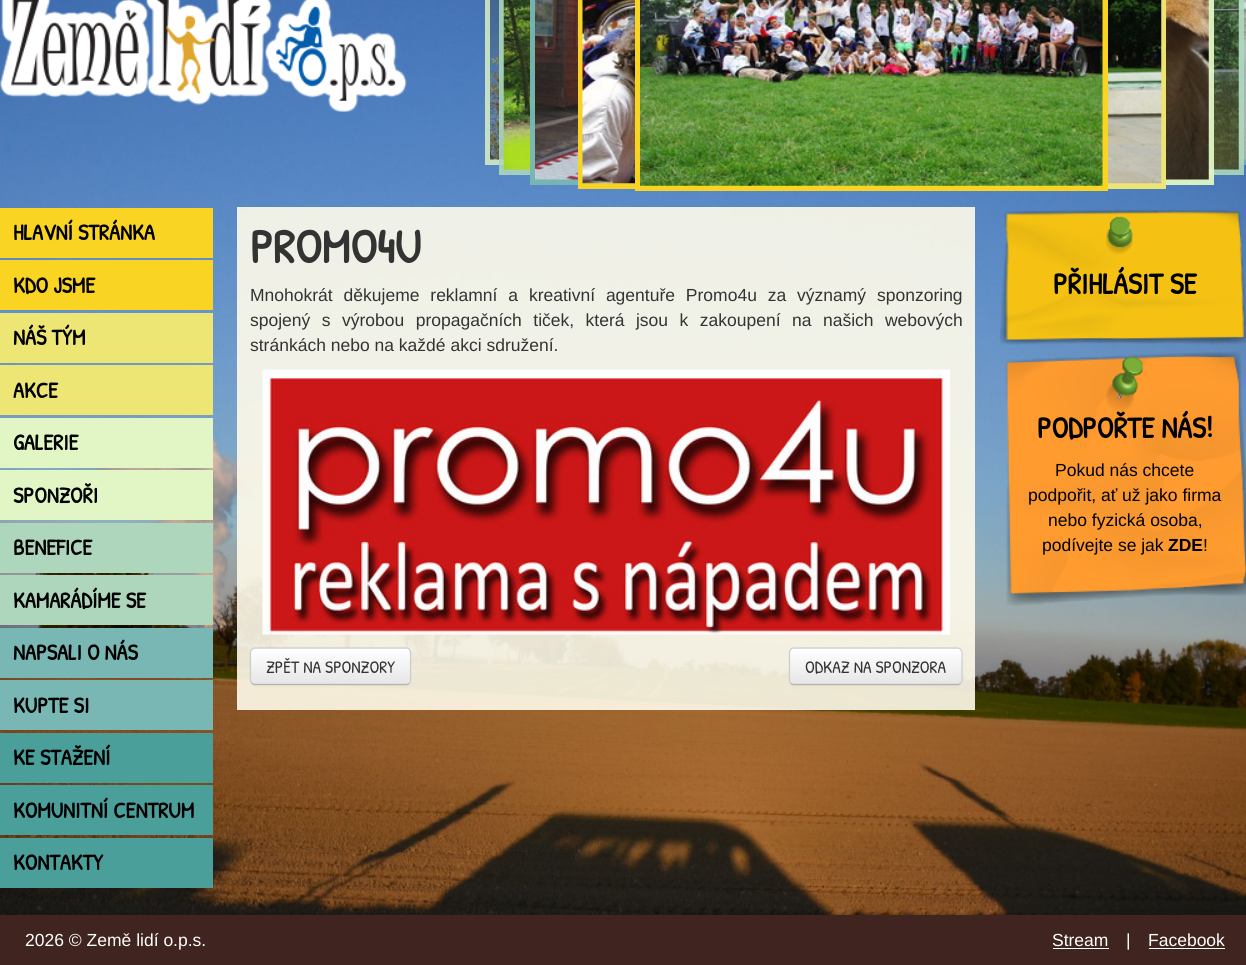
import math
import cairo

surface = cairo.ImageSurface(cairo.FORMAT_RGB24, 1246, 965)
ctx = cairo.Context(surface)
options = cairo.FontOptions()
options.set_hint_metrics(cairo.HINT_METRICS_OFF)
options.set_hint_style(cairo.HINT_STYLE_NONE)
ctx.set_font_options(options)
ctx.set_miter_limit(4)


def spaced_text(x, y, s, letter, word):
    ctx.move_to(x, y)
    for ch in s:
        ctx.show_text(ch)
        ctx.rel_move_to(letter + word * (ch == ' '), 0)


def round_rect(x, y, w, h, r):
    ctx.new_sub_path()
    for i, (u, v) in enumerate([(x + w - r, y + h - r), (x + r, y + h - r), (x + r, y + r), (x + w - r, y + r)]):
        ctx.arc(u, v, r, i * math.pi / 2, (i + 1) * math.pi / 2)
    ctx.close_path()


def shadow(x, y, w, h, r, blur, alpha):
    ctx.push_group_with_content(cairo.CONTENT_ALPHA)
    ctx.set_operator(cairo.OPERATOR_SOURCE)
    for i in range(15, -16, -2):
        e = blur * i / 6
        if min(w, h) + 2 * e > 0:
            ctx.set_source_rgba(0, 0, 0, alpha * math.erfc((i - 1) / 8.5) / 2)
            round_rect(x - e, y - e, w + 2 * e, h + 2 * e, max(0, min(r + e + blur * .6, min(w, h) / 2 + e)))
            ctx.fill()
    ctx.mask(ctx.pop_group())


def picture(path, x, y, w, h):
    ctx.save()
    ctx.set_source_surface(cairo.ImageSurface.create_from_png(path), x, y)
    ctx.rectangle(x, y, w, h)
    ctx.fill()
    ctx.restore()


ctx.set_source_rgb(1, 1, 1)
ctx.paint()
picture("img1.png", 0, 0, 1246, 915)
picture("img2.png", 0, 0, 407, 112)
picture("img10.png", 618, 0, 17, 115)
picture("img8.png", 563, 0, 72, 124)
picture("img6.png", 522, 0, 113, 135)
picture("img4.png", 496, 0, 139, 147)
ctx.set_source_rgba(0.882, 0.961, 0.769, 0.81)
ctx.rectangle(485, 0, 150, 165)
ctx.fill()
picture("img3.png", 490, 0, 145, 160)
ctx.set_source_rgba(0.678, 0.839, 0.737, 0.89)
ctx.rectangle(499, 0, 136, 175)
ctx.fill()
picture("img5.png", 503, 0, 132, 170)
ctx.set_source_rgba(0.475, 0.718, 0.706, 0.95)
ctx.rectangle(530, 0, 105, 185)
ctx.fill()
picture("img7.png", 535, 0, 100, 180)
ctx.set_source_rgba(0.976, 0.831, 0.137, 0.99)
ctx.rectangle(578, 0, 57, 189)
ctx.fill()
picture("img9.png", 582, 0, 53, 184)
ctx.set_source_rgb(0.976, 0.831, 0.137)
ctx.rectangle(635, 0, 473, 191)
ctx.fill()
picture("img11.png", 640, 0, 463, 186)
picture("img12.png", 1108, 0, 17, 115)
picture("img13.png", 1108, 0, 72, 124)
picture("img14.png", 1108, 0, 112, 135)
picture("img15.png", 1108, 0, 138, 147)
ctx.set_source_rgba(0.475, 0.718, 0.706, 0.81)
ctx.rectangle(1108, 0, 138, 165)
ctx.fill()
picture("img16.png", 1108, 0, 138, 160)
ctx.set_source_rgba(0.678, 0.839, 0.737, 0.89)
ctx.rectangle(1108, 0, 136, 175)
ctx.fill()
picture("img17.png", 1108, 0, 131, 170)
ctx.set_source_rgba(0.882, 0.961, 0.769, 0.95)
ctx.rectangle(1108, 0, 106, 185)
ctx.fill()
picture("img18.png", 1108, 0, 101, 180)
ctx.set_source_rgba(0.929, 0.898, 0.455, 0.99)
ctx.rectangle(1108, 0, 58, 189)
ctx.fill()
picture("img19.png", 1108, 0, 54, 184)
ctx.set_source_rgb(0.976, 0.831, 0.137)
ctx.rectangle(0, 208, 213, 50)
ctx.fill()
ctx.select_font_face("Patrick Hand", cairo.FONT_SLANT_NORMAL, cairo.FONT_WEIGHT_BOLD)
ctx.set_font_size(22.5)
ctx.set_source_rgb(0, 0, 0)
ctx.move_to(13, 240)
ctx.show_text("HLAVNÍ STRÁNKA")
ctx.set_source_rgb(0.976, 0.831, 0.137)
ctx.rectangle(0, 260, 213, 50)
ctx.fill()
ctx.set_source_rgb(0, 0, 0)
ctx.move_to(13, 293)
ctx.show_text("KDO JSME")
ctx.set_source_rgb(0.929, 0.898, 0.455)
ctx.rectangle(0, 313, 213, 50)
ctx.fill()
ctx.set_source_rgb(0, 0, 0)
ctx.move_to(13, 345)
ctx.show_text("NÁŠ TÝM")
ctx.set_source_rgb(0.929, 0.898, 0.455)
ctx.rectangle(0, 365, 213, 50)
ctx.fill()
ctx.set_source_rgb(0, 0, 0)
ctx.move_to(13, 398)
ctx.show_text("AKCE")
ctx.set_source_rgb(0.882, 0.961, 0.769)
ctx.rectangle(0, 418, 213, 50)
ctx.fill()
ctx.set_source_rgb(0, 0, 0)
ctx.move_to(13, 450)
ctx.show_text("GALERIE")
ctx.set_source_rgb(0.882, 0.961, 0.769)
ctx.rectangle(0, 470, 213, 50)
ctx.fill()
ctx.set_source_rgb(0, 0, 0)
ctx.move_to(13, 503)
ctx.show_text("SPONZOŘI")
ctx.set_source_rgb(0.678, 0.839, 0.737)
ctx.rectangle(0, 523, 213, 50)
ctx.fill()
ctx.set_source_rgb(0, 0, 0)
ctx.move_to(13, 555)
ctx.show_text("BENEFICE")
ctx.set_source_rgb(0.678, 0.839, 0.737)
ctx.rectangle(0, 575, 213, 50)
ctx.fill()
ctx.set_source_rgb(0, 0, 0)
ctx.move_to(13, 608)
ctx.show_text("KAMARÁDÍME SE")
ctx.set_source_rgb(0.475, 0.718, 0.706)
ctx.rectangle(0, 628, 213, 50)
ctx.fill()
ctx.set_source_rgb(0, 0, 0)
ctx.move_to(13, 660)
ctx.show_text("NAPSALI O NÁS")
ctx.set_source_rgb(0.475, 0.718, 0.706)
ctx.rectangle(0, 680, 213, 50)
ctx.fill()
ctx.set_source_rgb(0, 0, 0)
ctx.move_to(13, 713)
ctx.show_text("KUPTE SI")
ctx.set_source_rgb(0.294, 0.624, 0.608)
ctx.rectangle(0, 733, 213, 50)
ctx.fill()
ctx.set_source_rgb(0, 0, 0)
ctx.move_to(13, 765)
ctx.show_text("KE STAŽENÍ")
ctx.set_source_rgb(0.294, 0.624, 0.608)
ctx.rectangle(0, 785, 213, 50)
ctx.fill()
ctx.set_source_rgb(0, 0, 0)
ctx.move_to(13, 818)
ctx.show_text("KOMUNITNÍ CENTRUM")
ctx.set_source_rgb(0.294, 0.624, 0.608)
ctx.rectangle(0, 838, 213, 50)
ctx.fill()
ctx.set_source_rgb(0, 0, 0)
ctx.move_to(13, 870)
ctx.show_text("KONTAKTY")
ctx.set_source_rgba(1, 0.984, 0.918, 0.9)
ctx.rectangle(237, 207, 738, 503)
ctx.fill()
ctx.set_font_size(48)
ctx.set_source_rgb(0.2, 0.2, 0.2)
ctx.move_to(250, 263)
ctx.show_text("PROMO4U")
ctx.select_font_face("Liberation Sans")
ctx.set_font_size(17.5)
spaced_text(250, 301, "Mnohokrát děkujeme reklamní a kreativní agentuře Promo4u za významý sponzoring", 0, 6)
spaced_text(250, 326, "spojený s výrobou propagačních tiček, která jsou k zakoupení na našich webových", 0, 6.6)
ctx.move_to(250, 351)
ctx.show_text("stránkách nebo na každé akci sdružení.")
picture("img20.png", 262, 369, 688, 266)
ctx.set_source_rgb(0, 0, 0)
shadow(250, 649, 161, 37, 5, 1, 0.05)
ctx.set_source_rgb(0.961, 0.961, 0.961)
round_rect(250, 648, 161, 37, 5)
ctx.fill()
ctx.save()
round_rect(250, 648, 161, 37, 5)
ctx.clip()
gradient = cairo.LinearGradient(331, 649, 331, 684)
gradient.add_color_stop_rgba(0, 1, 1, 1, 1)
gradient.add_color_stop_rgba(1, 0.902, 0.902, 0.902, 1)
ctx.set_source(gradient)
ctx.rectangle(250, 649, 161, 35)
ctx.fill()
ctx.restore()
ctx.new_path()
ctx.move_to(409.5, 683)
ctx.curve_to(408.5, 684, 407.5, 684.5, 406, 684.5)
ctx.line_to(255, 684.5)
ctx.curve_to(254, 684.5, 252.5, 684, 252, 683)
ctx.set_source_rgb(0.702, 0.702, 0.702)
ctx.set_line_width(1.2)
ctx.stroke()
ctx.new_path()
ctx.move_to(252, 683)
ctx.curve_to(251, 682.5, 250.5, 681, 250.5, 680)
ctx.line_to(250.5, 652.5)
ctx.curve_to(250.5, 651.5, 251, 650, 252, 649.5)
ctx.curve_to(252.5, 648.5, 254, 648, 255, 648)
ctx.line_to(406, 648)
ctx.curve_to(407.5, 648, 408.5, 648.5, 409.5, 649.5)
ctx.curve_to(410, 650, 410.5, 651.5, 410.5, 652.5)
ctx.line_to(410.5, 680)
ctx.curve_to(410.5, 681, 410, 682.5, 409.5, 683)
ctx.set_source_rgb(0.8, 0.8, 0.8)
ctx.stroke()
ctx.select_font_face("Patrick Hand")
ctx.set_source_rgb(0.2, 0.2, 0.2)
ctx.move_to(266, 673)
ctx.show_text("ZPĚT NA SPONZORY")
ctx.set_source_rgb(0, 0, 0)
shadow(789, 649, 174, 37, 5, 1, 0.05)
ctx.set_source_rgb(0.961, 0.961, 0.961)
round_rect(789, 648, 174, 37, 5)
ctx.fill()
ctx.save()
round_rect(789, 648, 174, 37, 5)
ctx.clip()
gradient = cairo.LinearGradient(876, 649, 876, 684)
gradient.add_color_stop_rgba(0, 1, 1, 1, 1)
gradient.add_color_stop_rgba(1, 0.902, 0.902, 0.902, 1)
ctx.set_source(gradient)
ctx.rectangle(789, 649, 174, 35)
ctx.fill()
ctx.restore()
ctx.new_path()
ctx.move_to(960.5, 683)
ctx.curve_to(960, 684, 958.5, 684.5, 957.5, 684.5)
ctx.line_to(794, 684.5)
ctx.curve_to(792.5, 684.5, 791.5, 684, 790.5, 683)
ctx.set_source_rgb(0.702, 0.702, 0.702)
ctx.stroke()
ctx.new_path()
ctx.move_to(790.5, 683)
ctx.curve_to(790, 682.5, 789.5, 681, 789.5, 680)
ctx.line_to(789.5, 652.5)
ctx.curve_to(789.5, 651.5, 790, 650, 790.5, 649.5)
ctx.curve_to(791.5, 648.5, 792.5, 648, 794, 648)
ctx.line_to(957.5, 648)
ctx.curve_to(958.5, 648, 960, 648.5, 960.5, 649.5)
ctx.curve_to(961.5, 650, 962, 651.5, 962, 652.5)
ctx.line_to(962, 680)
ctx.curve_to(962, 681, 961.5, 682.5, 960.5, 683)
ctx.set_source_rgb(0.8, 0.8, 0.8)
ctx.stroke()
ctx.set_source_rgb(0.2, 0.2, 0.2)
ctx.move_to(805, 673)
ctx.show_text("ODKAZ NA SPONZORA")
picture("img21.png", 1000, 209, 246, 136)
ctx.select_font_face("Patrick Hand", cairo.FONT_SLANT_NORMAL, cairo.FONT_WEIGHT_BOLD)
ctx.set_font_size(30)
ctx.set_source_rgb(0, 0, 0)
ctx.move_to(1053, 294)
ctx.show_text("PŘIHLÁSIT SE")
picture("img22.png", 1005, 351, 241, 255)
ctx.move_to(1037, 438)
ctx.show_text("PODPOŘTE NÁS!")
ctx.select_font_face("Liberation Sans")
ctx.set_font_size(17.5)
ctx.move_to(1055, 476)
ctx.show_text("Pokud nás chcete")
ctx.move_to(1028, 501)
ctx.show_text("podpořit, ať už jako firma")
ctx.move_to(1048, 526)
ctx.show_text("nebo fyzická osoba,")
ctx.move_to(1042, 551)
ctx.show_text("podívejte se jak")
ctx.select_font_face("Liberation Sans", cairo.FONT_SLANT_NORMAL, cairo.FONT_WEIGHT_BOLD)
ctx.move_to(1168, 551)
ctx.show_text("ZDE")
ctx.select_font_face("Liberation Sans")
ctx.move_to(1203, 551)
ctx.show_text("!")
ctx.set_source_rgb(0.251, 0.141, 0.125)
ctx.rectangle(0, 915, 1246, 50)
ctx.fill()
ctx.set_source_rgb(1, 1, 1)
ctx.move_to(25, 946)
ctx.show_text("2026 © Země lidí o.p.s.")
ctx.move_to(1052, 946)
ctx.show_text("Stream")
ctx.rectangle(1053, 948, 56, 1)
ctx.fill()
ctx.move_to(1126, 946)
ctx.show_text("|")
ctx.move_to(1148, 946)
ctx.show_text("Facebook")
ctx.rectangle(1149, 948, 76, 1)
ctx.fill()
surface.write_to_png("page.png")
